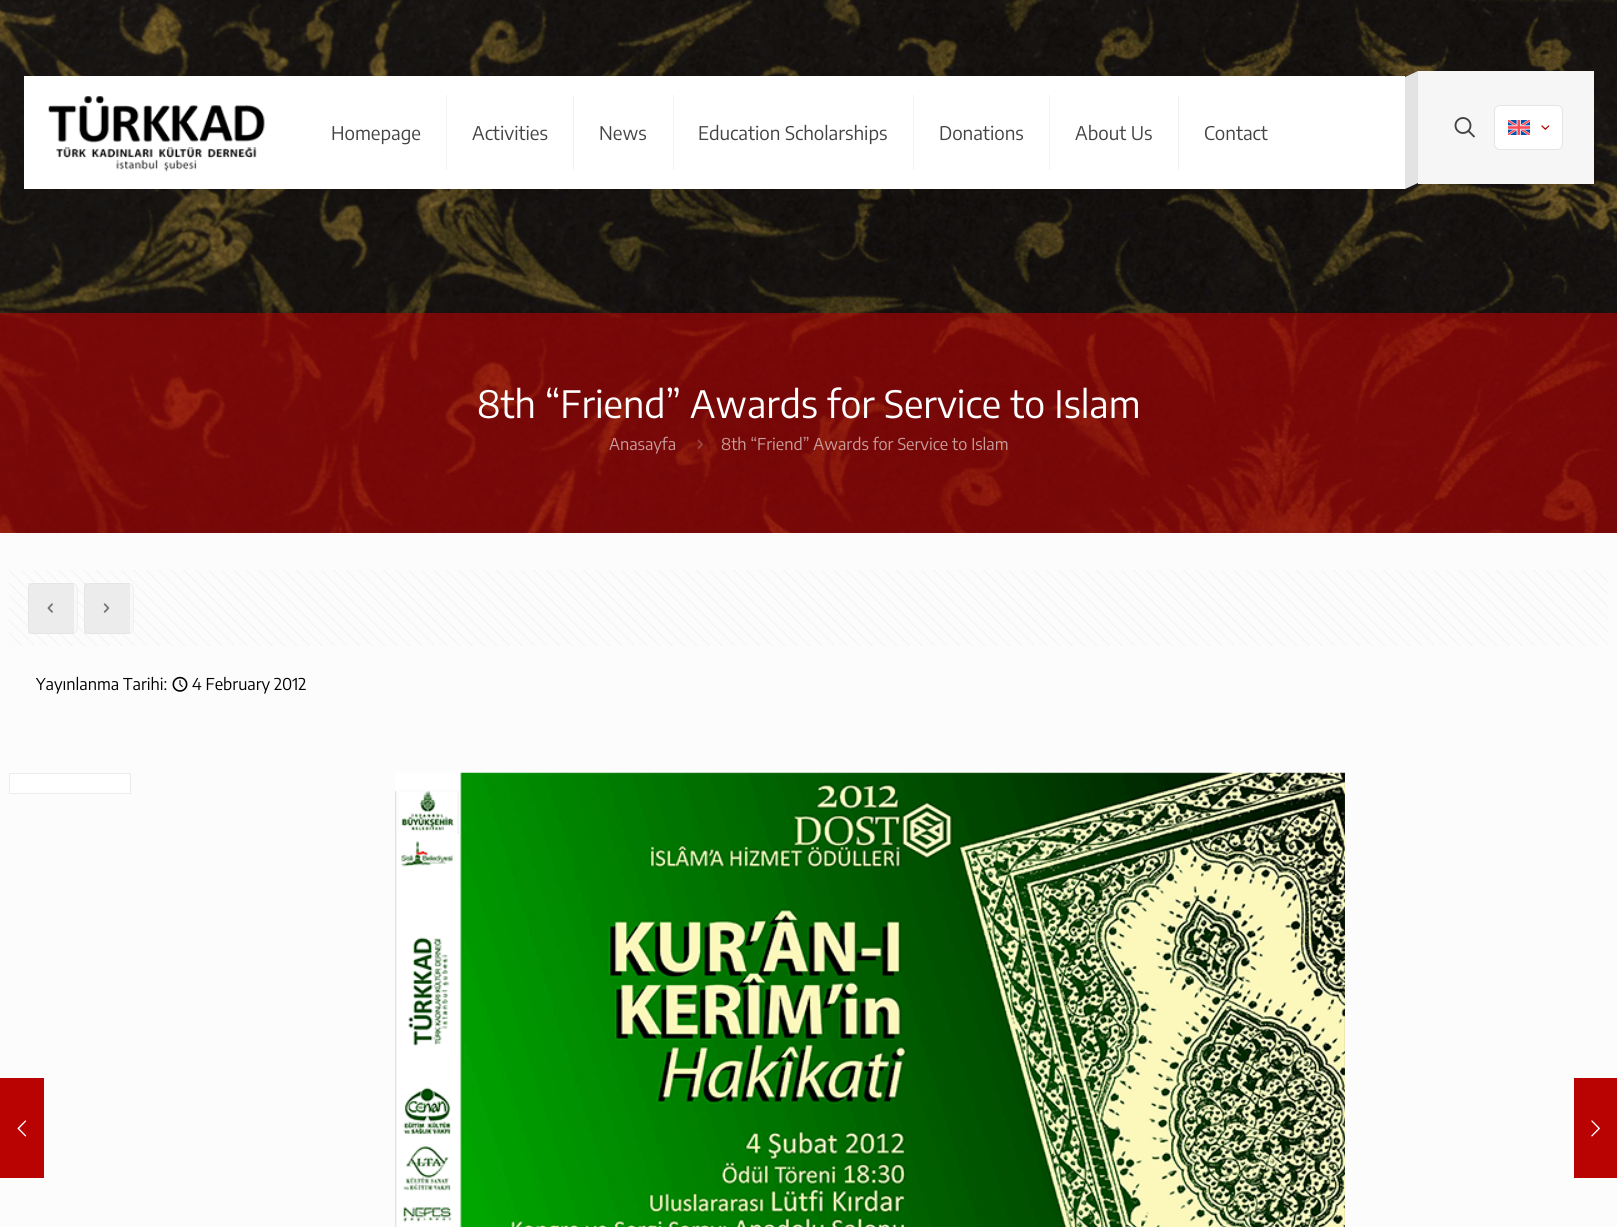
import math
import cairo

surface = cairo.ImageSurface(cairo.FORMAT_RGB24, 1617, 1227)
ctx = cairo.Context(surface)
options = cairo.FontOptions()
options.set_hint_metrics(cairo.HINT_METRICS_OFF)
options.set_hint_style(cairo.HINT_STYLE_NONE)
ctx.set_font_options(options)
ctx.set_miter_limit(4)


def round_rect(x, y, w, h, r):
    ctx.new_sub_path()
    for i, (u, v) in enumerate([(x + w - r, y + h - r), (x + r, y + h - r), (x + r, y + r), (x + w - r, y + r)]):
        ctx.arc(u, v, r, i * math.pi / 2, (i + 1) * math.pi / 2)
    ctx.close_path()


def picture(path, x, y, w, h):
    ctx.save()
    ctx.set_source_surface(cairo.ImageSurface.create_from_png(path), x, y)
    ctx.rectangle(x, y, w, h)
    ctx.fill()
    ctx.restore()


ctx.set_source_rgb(0.988, 0.988, 0.988)
ctx.paint()
picture("img1.png", 0, 0, 1617, 533)
ctx.set_source_rgb(1, 1, 1)
ctx.rectangle(24, 76, 1381, 113)
ctx.fill()
picture("img2.png", 48, 96, 217, 76)
ctx.set_source_rgb(0.949, 0.949, 0.949)
ctx.rectangle(446, 95, 1, 75)
ctx.fill()
ctx.select_font_face("Encode Sans Condensed")
ctx.set_font_size(18.75)
ctx.set_source_rgb(0.267, 0.267, 0.267)
ctx.move_to(331, 140)
ctx.show_text("Homepage")
ctx.set_source_rgb(0.949, 0.949, 0.949)
ctx.rectangle(573, 95, 1, 75)
ctx.fill()
ctx.set_source_rgb(0.267, 0.267, 0.267)
ctx.move_to(472, 140)
ctx.show_text("Activities")
ctx.set_source_rgb(0.949, 0.949, 0.949)
ctx.rectangle(673, 95, 1, 75)
ctx.fill()
ctx.set_source_rgb(0.267, 0.267, 0.267)
ctx.move_to(599, 140)
ctx.show_text("News")
ctx.set_source_rgb(0.949, 0.949, 0.949)
ctx.rectangle(913, 95, 1, 75)
ctx.fill()
ctx.set_source_rgb(0.267, 0.267, 0.267)
ctx.move_to(698, 140)
ctx.show_text("Education Scholarships")
ctx.set_source_rgb(0.949, 0.949, 0.949)
ctx.rectangle(1049, 95, 1, 75)
ctx.fill()
ctx.set_source_rgb(0.267, 0.267, 0.267)
ctx.move_to(939, 140)
ctx.show_text("Donations")
ctx.set_source_rgb(0.949, 0.949, 0.949)
ctx.rectangle(1178, 95, 1, 75)
ctx.fill()
ctx.set_source_rgb(0.267, 0.267, 0.267)
ctx.move_to(1075, 140)
ctx.show_text("About Us")
ctx.move_to(1204, 140)
ctx.show_text("Contact")
ctx.set_source_rgb(0.961, 0.961, 0.961)
ctx.rectangle(1418, 71, 176, 113)
ctx.fill()
ctx.set_source_rgb(0.89, 0.89, 0.89)
ctx.new_path()
ctx.move_to(1405, 77)
ctx.line_to(1418, 71)
ctx.line_to(1418, 183)
ctx.line_to(1405, 189)
ctx.close_path()
ctx.fill()
ctx.arc(1463, 125.5, 7.5, 0, 2 * math.pi)
ctx.set_source_rgb(0.267, 0.267, 0.267)
ctx.set_line_width(1.9)
ctx.stroke()
ctx.new_path()
ctx.move_to(1468, 130.5)
ctx.line_to(1474.5, 137)
ctx.stroke()
ctx.set_source_rgb(1, 1, 1)
round_rect(1494.5, 105.5, 68, 44, 5.5)
ctx.fill_preserve()
ctx.set_source_rgb(0.898, 0.898, 0.898)
ctx.set_line_width(1)
ctx.stroke()
picture("img3.png", 1508, 120, 22, 15)
picture("img4.png", 1541, 125, 9, 5)
ctx.set_source_rgba(0.725, 0.008, 0.008, 0.6)
ctx.rectangle(0, 313, 1617, 220)
ctx.fill()
ctx.set_font_size(37.5)
ctx.set_source_rgb(1, 1, 1)
ctx.move_to(477, 418)
ctx.show_text("8th “Friend” Awards for Service to Islam")
ctx.set_font_size(16.25)
ctx.set_source_rgb(0.788, 0.616, 0.612)
ctx.move_to(609, 450)
ctx.show_text("Anasayfa")
picture("img5.png", 697, 439, 6, 10)
ctx.move_to(721, 450)
ctx.show_text("8th “Friend” Awards for Service to Islam")
picture("img6.png", 9, 570, 1600, 76)
ctx.set_source_rgb(0.969, 0.969, 0.969)
round_rect(28.5, 583.5, 49, 50, 5.5)
ctx.fill_preserve()
ctx.set_source_rgb(0.941, 0.941, 0.941)
ctx.stroke()
picture("img7.png", 47, 603, 6, 10)
ctx.set_source_rgba(0, 0, 0, 0.05)
ctx.rectangle(28, 583, 46, 51)
ctx.fill()
ctx.set_source_rgb(0.969, 0.969, 0.969)
round_rect(84.5, 583.5, 49, 50, 5.5)
ctx.fill_preserve()
ctx.set_source_rgb(0.941, 0.941, 0.941)
ctx.stroke()
picture("img8.png", 103, 603, 7, 10)
ctx.set_source_rgba(0, 0, 0, 0.05)
ctx.rectangle(84, 583, 46, 51)
ctx.fill()
ctx.set_source_rgb(0, 0, 0)
ctx.move_to(36, 690)
ctx.show_text("Yayınlanma Tarihi:")
picture("img9.png", 172, 676, 16, 16)
ctx.move_to(192, 690)
ctx.show_text("4 February 2012")
ctx.set_source_rgb(1, 1, 1)
ctx.rectangle(9.5, 773.5, 121, 20)
ctx.fill_preserve()
ctx.set_source_rgb(0.922, 0.922, 0.922)
ctx.stroke()
picture("img10.png", 395, 772, 950, 455)
ctx.set_source_rgb(0.725, 0.008, 0.008)
ctx.rectangle(0, 1078, 44, 100)
ctx.fill()
picture("img11.png", 17, 1120, 10, 17)
ctx.rectangle(1574, 1078, 43, 100)
ctx.fill()
picture("img12.png", 1591, 1120, 9, 17)
surface.write_to_png("page.png")
